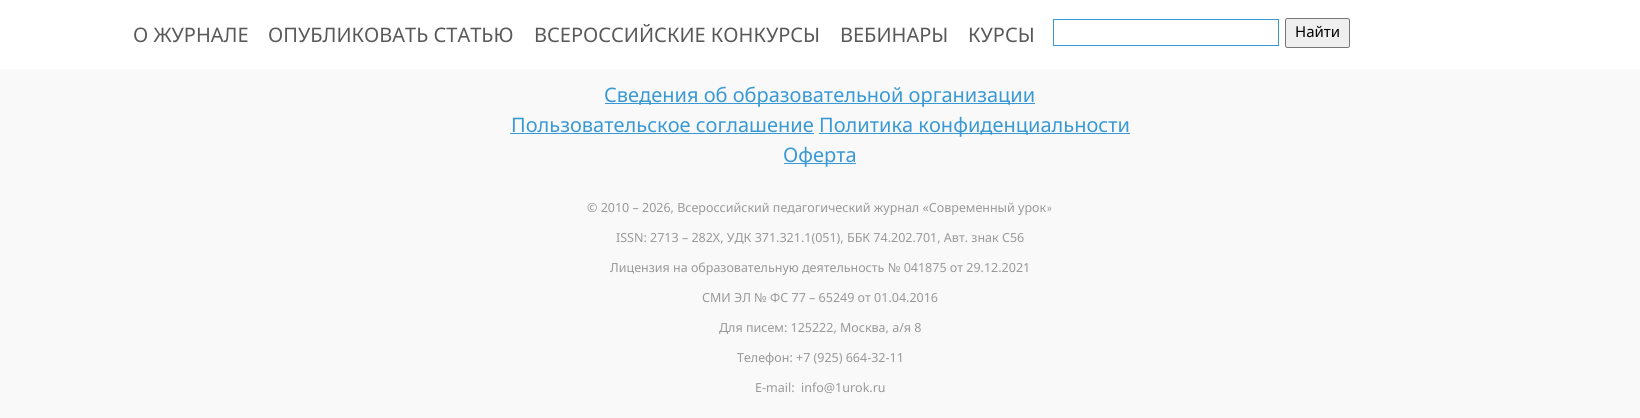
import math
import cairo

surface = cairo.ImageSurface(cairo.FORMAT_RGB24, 1640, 418)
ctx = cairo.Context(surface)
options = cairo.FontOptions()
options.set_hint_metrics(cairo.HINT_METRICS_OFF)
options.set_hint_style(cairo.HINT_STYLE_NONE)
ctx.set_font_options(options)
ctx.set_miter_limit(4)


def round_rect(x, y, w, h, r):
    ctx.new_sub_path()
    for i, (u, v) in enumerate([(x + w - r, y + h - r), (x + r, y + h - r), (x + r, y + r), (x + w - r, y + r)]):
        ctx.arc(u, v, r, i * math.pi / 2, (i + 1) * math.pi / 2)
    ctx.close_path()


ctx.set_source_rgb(0.976, 0.976, 0.976)
ctx.paint()
ctx.set_source_rgb(1, 1, 1)
ctx.rectangle(0, 0, 1640, 69)
ctx.fill()
ctx.select_font_face("Noto Sans")
ctx.set_font_size(20)
ctx.set_source_rgb(0.349, 0.349, 0.349)
ctx.move_to(133, 42)
ctx.show_text("О ЖУРНАЛЕ")
ctx.move_to(268, 42)
ctx.show_text("ОПУБЛИКОВАТЬ СТАТЬЮ")
ctx.move_to(534, 42)
ctx.show_text("ВСЕРОССИЙСКИЕ КОНКУРСЫ")
ctx.move_to(840, 42)
ctx.show_text("ВЕБИНАРЫ")
ctx.move_to(968, 42)
ctx.show_text("КУРСЫ")
ctx.rectangle(1053.5, 19.5, 225, 26)
ctx.set_source_rgb(0.224, 0.6, 0.831)
ctx.set_line_width(1)
ctx.stroke()
ctx.set_source_rgb(0.937, 0.937, 0.937)
round_rect(1285.5, 18.5, 64, 29, 2)
ctx.fill_preserve()
ctx.set_source_rgb(0.463, 0.463, 0.463)
ctx.stroke()
ctx.set_font_size(15)
ctx.set_source_rgb(0, 0, 0)
ctx.move_to(1295, 37)
ctx.show_text("Найти")
ctx.set_source_rgb(0.224, 0.6, 0.831)
ctx.rectangle(605, 103, 430, 1)
ctx.fill()
ctx.set_font_size(20)
ctx.move_to(604, 102)
ctx.show_text("Сведения об образовательной организации")
ctx.move_to(511, 132)
ctx.show_text("Пользовательское соглашение")
ctx.rectangle(510, 133, 304, 1)
ctx.fill()
ctx.rectangle(819, 133, 311, 1)
ctx.fill()
ctx.move_to(819, 132)
ctx.show_text("Политика конфиденциальности")
ctx.rectangle(784, 163, 72, 1)
ctx.fill()
ctx.move_to(783, 162)
ctx.show_text("Оферта")
ctx.set_font_size(12.5)
ctx.set_source_rgb(0.6, 0.6, 0.6)
ctx.move_to(587, 212)
ctx.show_text("© 2010 – 2026, Всероссийский педагогический журнал «Современный урок")
ctx.select_font_face("Carlito")
ctx.move_to(1046, 212)
ctx.show_text("»")
ctx.select_font_face("Noto Sans")
ctx.move_to(616, 242)
ctx.show_text("ISSN: 2713 – 282X, УДК 371.321.1(051), ББК 74.202.701, Авт. знак С56")
ctx.move_to(610, 272)
ctx.show_text("Лицензия на образовательную деятельность № 041875 от 29.12.2021")
ctx.move_to(702, 302)
ctx.show_text("СМИ ЭЛ № ФС 77 – 65249 от 01.04.2016")
ctx.move_to(719, 332)
ctx.show_text("Для писем: 125222, Москва, a/я 8")
ctx.move_to(737, 362)
ctx.show_text("Телефон: +7 (925) 664-32-11")
ctx.move_to(755, 392)
ctx.show_text("E-mail:  info@1urok.ru")
surface.write_to_png("page.png")
